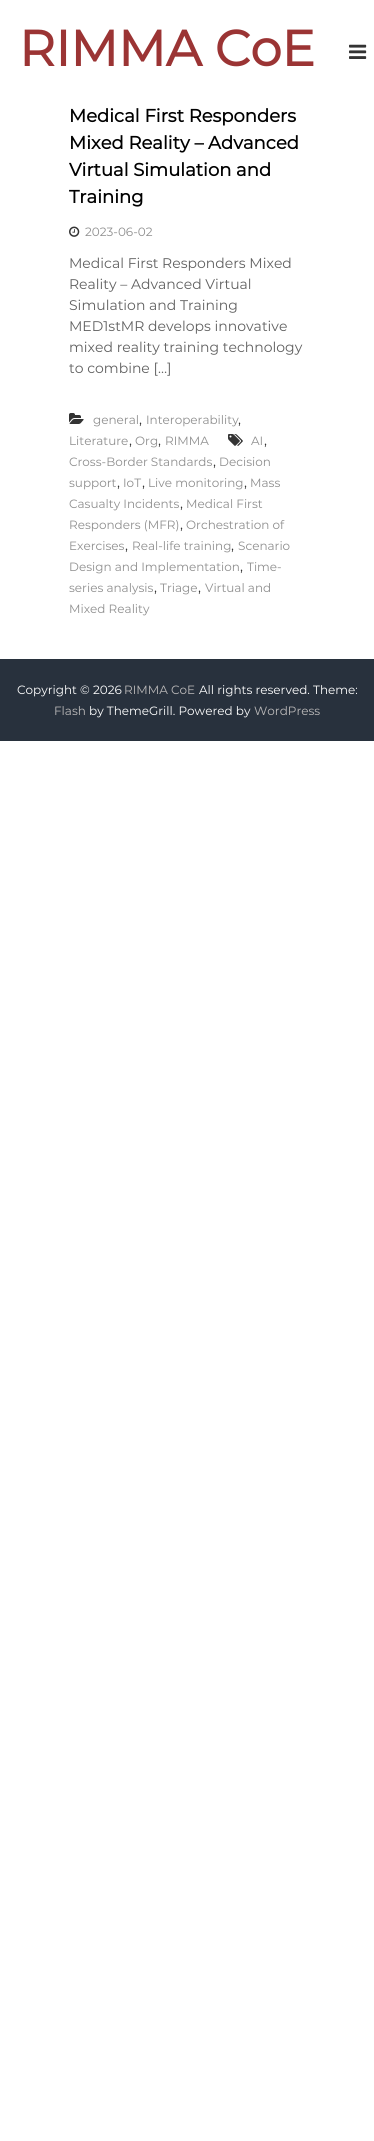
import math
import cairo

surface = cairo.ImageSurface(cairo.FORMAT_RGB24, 374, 2141)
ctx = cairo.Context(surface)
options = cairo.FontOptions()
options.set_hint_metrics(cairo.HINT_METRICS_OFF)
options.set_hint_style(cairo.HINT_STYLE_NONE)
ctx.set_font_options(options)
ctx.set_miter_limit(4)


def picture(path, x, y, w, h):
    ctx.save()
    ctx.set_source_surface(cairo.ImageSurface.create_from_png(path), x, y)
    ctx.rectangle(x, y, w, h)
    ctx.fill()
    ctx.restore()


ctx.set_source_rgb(1, 1, 1)
ctx.paint()
ctx.select_font_face("Montserrat", cairo.FONT_SLANT_NORMAL, cairo.FONT_WEIGHT_BOLD)
ctx.set_font_size(50)
ctx.set_source_rgb(0.608, 0.204, 0.204)
ctx.move_to(19, 66)
ctx.show_text("RIMMA CoE")
picture("img1.png", 349, 44, 18, 15)
ctx.set_font_size(18)
ctx.set_source_rgb(0, 0, 0)
ctx.move_to(69, 122)
ctx.show_text("Medical First Responders")
ctx.move_to(69, 149)
ctx.show_text("Mixed Reality – Advanced")
ctx.move_to(69, 176)
ctx.show_text("Virtual Simulation and")
ctx.move_to(69, 203)
ctx.show_text("Training")
picture("img2.png", 69, 226, 11, 11)
ctx.select_font_face("Montserrat")
ctx.set_font_size(12)
ctx.set_source_rgb(0.557, 0.557, 0.557)
ctx.move_to(85, 236)
ctx.show_text("2023-06-02")
ctx.set_font_size(14)
ctx.set_source_rgb(0.376, 0.376, 0.376)
ctx.move_to(69, 268)
ctx.show_text("Medical First Responders Mixed")
ctx.move_to(69, 289)
ctx.show_text("Reality – Advanced Virtual")
ctx.move_to(69, 310)
ctx.show_text("Simulation and Training")
ctx.move_to(69, 331)
ctx.show_text("MED1stMR develops innovative")
ctx.move_to(69, 352)
ctx.show_text("mixed reality training technology")
ctx.move_to(69, 373)
ctx.show_text("to combine […]")
picture("img3.png", 69, 413, 15, 11)
ctx.set_font_size(12)
ctx.set_source_rgb(0.557, 0.557, 0.557)
ctx.move_to(93, 424)
ctx.show_text("general")
ctx.set_font_size(14)
ctx.set_source_rgb(0.2, 0.2, 0.2)
ctx.move_to(139, 424)
ctx.show_text(",")
ctx.set_font_size(12)
ctx.set_source_rgb(0.557, 0.557, 0.557)
ctx.move_to(146, 424)
ctx.show_text("Interoperability")
ctx.set_font_size(14)
ctx.set_source_rgb(0.2, 0.2, 0.2)
ctx.move_to(238, 424)
ctx.show_text(",")
ctx.set_font_size(12)
ctx.set_source_rgb(0.557, 0.557, 0.557)
ctx.move_to(69, 445)
ctx.show_text("Literature")
ctx.move_to(135, 445)
ctx.show_text("Org")
ctx.move_to(165, 445)
ctx.show_text("RIMMA")
ctx.set_font_size(14)
ctx.set_source_rgb(0.2, 0.2, 0.2)
ctx.move_to(129, 445)
ctx.show_text(",")
ctx.move_to(158, 445)
ctx.show_text(",")
picture("img4.png", 228, 434, 15, 12)
ctx.set_font_size(12)
ctx.set_source_rgb(0.557, 0.557, 0.557)
ctx.move_to(251, 445)
ctx.show_text("AI")
ctx.set_font_size(14)
ctx.set_source_rgb(0.2, 0.2, 0.2)
ctx.move_to(264, 445)
ctx.show_text(",")
ctx.set_font_size(12)
ctx.set_source_rgb(0.557, 0.557, 0.557)
ctx.move_to(69, 466)
ctx.show_text("Cross-Border Standards")
ctx.set_font_size(14)
ctx.set_source_rgb(0.2, 0.2, 0.2)
ctx.move_to(213, 466)
ctx.show_text(",")
ctx.set_font_size(12)
ctx.set_source_rgb(0.557, 0.557, 0.557)
ctx.move_to(219, 466)
ctx.show_text("Decision")
ctx.move_to(69, 487)
ctx.show_text("support")
ctx.set_font_size(14)
ctx.set_source_rgb(0.2, 0.2, 0.2)
ctx.move_to(117, 487)
ctx.show_text(",")
ctx.set_font_size(12)
ctx.set_source_rgb(0.557, 0.557, 0.557)
ctx.move_to(123, 487)
ctx.show_text("IoT")
ctx.set_font_size(14)
ctx.set_source_rgb(0.2, 0.2, 0.2)
ctx.move_to(142, 487)
ctx.show_text(",")
ctx.set_font_size(12)
ctx.set_source_rgb(0.557, 0.557, 0.557)
ctx.move_to(148, 487)
ctx.show_text("Live monitoring")
ctx.set_font_size(14)
ctx.set_source_rgb(0.2, 0.2, 0.2)
ctx.move_to(244, 487)
ctx.show_text(",")
ctx.set_font_size(12)
ctx.set_source_rgb(0.557, 0.557, 0.557)
ctx.move_to(250, 487)
ctx.show_text("Mass")
ctx.move_to(69, 508)
ctx.show_text("Casualty Incidents")
ctx.set_font_size(14)
ctx.set_source_rgb(0.2, 0.2, 0.2)
ctx.move_to(180, 508)
ctx.show_text(",")
ctx.set_font_size(12)
ctx.set_source_rgb(0.557, 0.557, 0.557)
ctx.move_to(186, 508)
ctx.show_text("Medical First")
ctx.move_to(69, 529)
ctx.show_text("Responders (MFR)")
ctx.set_font_size(14)
ctx.set_source_rgb(0.2, 0.2, 0.2)
ctx.move_to(180, 529)
ctx.show_text(",")
ctx.set_font_size(12)
ctx.set_source_rgb(0.557, 0.557, 0.557)
ctx.move_to(186, 529)
ctx.show_text("Orchestration of")
ctx.move_to(69, 550)
ctx.show_text("Exercises")
ctx.set_font_size(14)
ctx.set_source_rgb(0.2, 0.2, 0.2)
ctx.move_to(125, 550)
ctx.show_text(",")
ctx.set_font_size(12)
ctx.set_source_rgb(0.557, 0.557, 0.557)
ctx.move_to(132, 550)
ctx.show_text("Real-life training")
ctx.set_font_size(14)
ctx.set_source_rgb(0.2, 0.2, 0.2)
ctx.move_to(231, 550)
ctx.show_text(",")
ctx.set_font_size(12)
ctx.set_source_rgb(0.557, 0.557, 0.557)
ctx.move_to(238, 550)
ctx.show_text("Scenario")
ctx.move_to(69, 571)
ctx.show_text("Design and Implementation")
ctx.set_font_size(14)
ctx.set_source_rgb(0.2, 0.2, 0.2)
ctx.move_to(240, 571)
ctx.show_text(",")
ctx.set_font_size(12)
ctx.set_source_rgb(0.557, 0.557, 0.557)
ctx.move_to(247, 571)
ctx.show_text("Time-")
ctx.move_to(69, 592)
ctx.show_text("series analysis")
ctx.set_font_size(14)
ctx.set_source_rgb(0.2, 0.2, 0.2)
ctx.move_to(154, 592)
ctx.show_text(",")
ctx.set_font_size(12)
ctx.set_source_rgb(0.557, 0.557, 0.557)
ctx.move_to(160, 592)
ctx.show_text("Triage")
ctx.set_font_size(14)
ctx.set_source_rgb(0.2, 0.2, 0.2)
ctx.move_to(198, 592)
ctx.show_text(",")
ctx.set_font_size(12)
ctx.set_source_rgb(0.557, 0.557, 0.557)
ctx.move_to(205, 592)
ctx.show_text("Virtual and")
ctx.move_to(69, 613)
ctx.show_text("Mixed Reality")
ctx.set_source_rgb(0.157, 0.192, 0.239)
ctx.rectangle(0, 659, 374, 82)
ctx.fill()
ctx.set_source_rgb(1, 1, 1)
ctx.move_to(17, 694)
ctx.show_text("Copyright © 2026")
ctx.set_source_rgb(0.737, 0.729, 0.729)
ctx.move_to(124, 694)
ctx.show_text("RIMMA CoE")
ctx.set_source_rgb(1, 1, 1)
ctx.move_to(199, 694)
ctx.show_text("All rights reserved. Theme:")
ctx.set_source_rgb(0.737, 0.729, 0.729)
ctx.move_to(54, 715)
ctx.show_text("Flash")
ctx.set_source_rgb(1, 1, 1)
ctx.move_to(89, 715)
ctx.show_text("by ThemeGrill. Powered by")
ctx.set_source_rgb(0.737, 0.729, 0.729)
ctx.move_to(254, 715)
ctx.show_text("WordPress")
surface.write_to_png("page.png")
